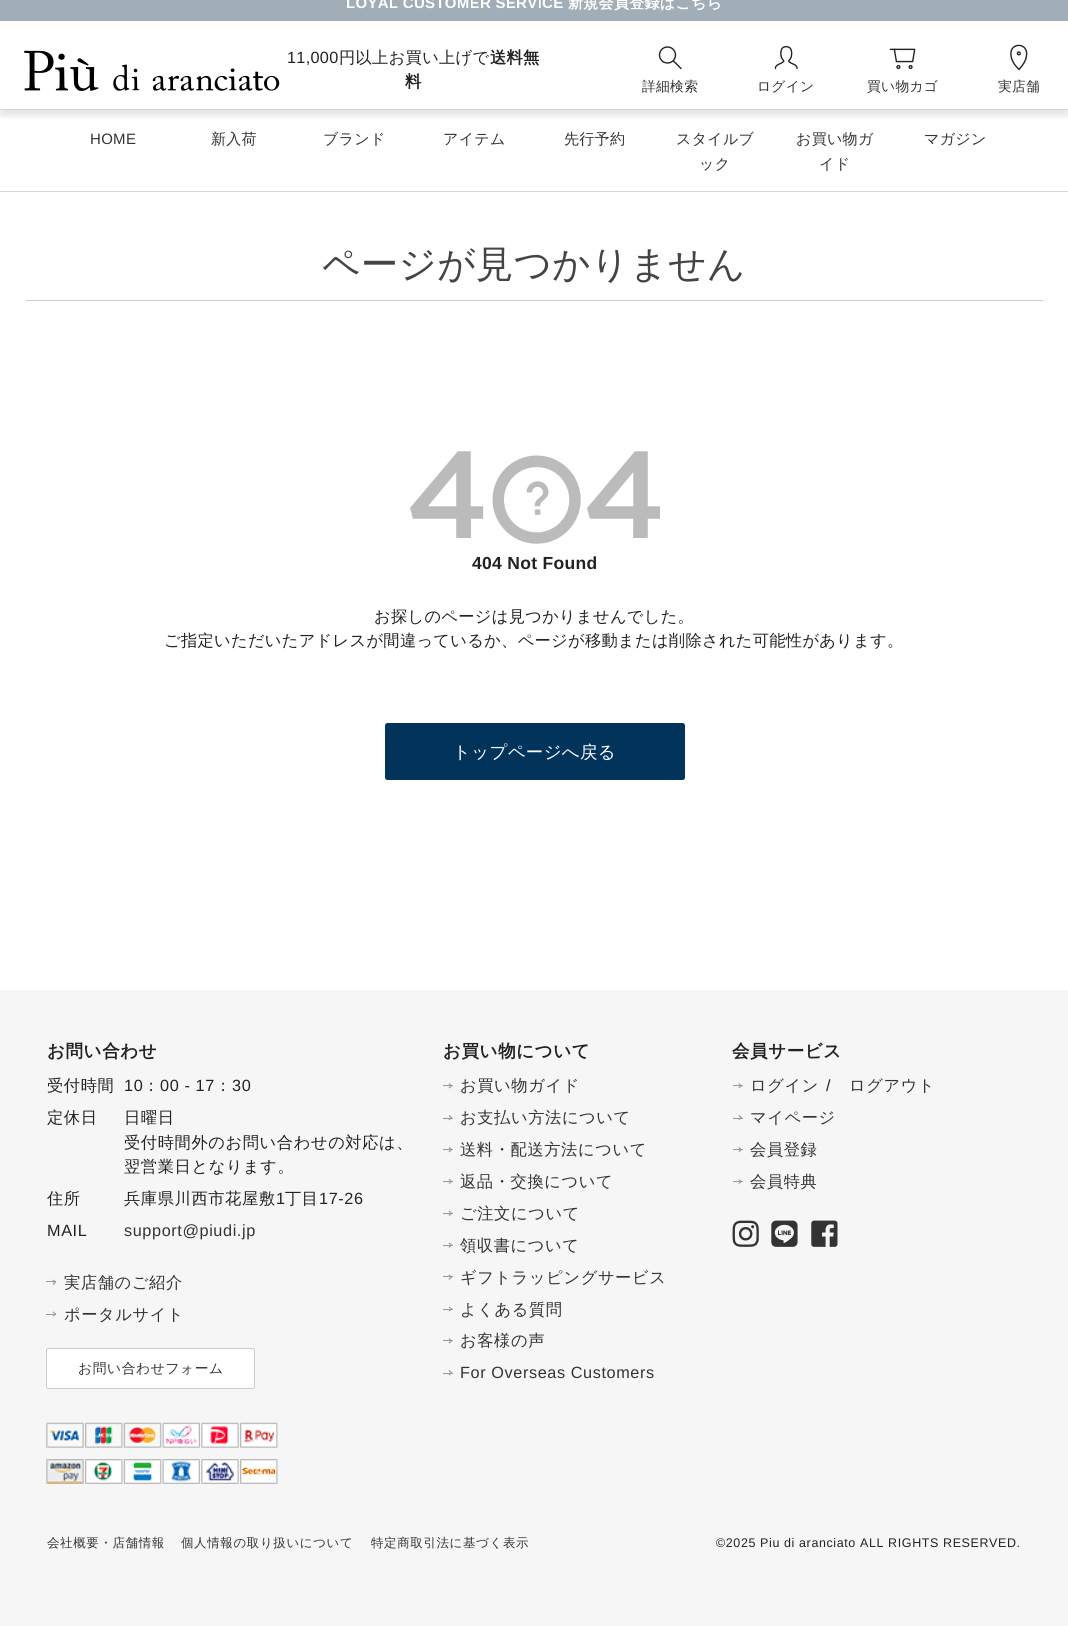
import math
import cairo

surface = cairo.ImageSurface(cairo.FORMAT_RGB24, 1068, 1626)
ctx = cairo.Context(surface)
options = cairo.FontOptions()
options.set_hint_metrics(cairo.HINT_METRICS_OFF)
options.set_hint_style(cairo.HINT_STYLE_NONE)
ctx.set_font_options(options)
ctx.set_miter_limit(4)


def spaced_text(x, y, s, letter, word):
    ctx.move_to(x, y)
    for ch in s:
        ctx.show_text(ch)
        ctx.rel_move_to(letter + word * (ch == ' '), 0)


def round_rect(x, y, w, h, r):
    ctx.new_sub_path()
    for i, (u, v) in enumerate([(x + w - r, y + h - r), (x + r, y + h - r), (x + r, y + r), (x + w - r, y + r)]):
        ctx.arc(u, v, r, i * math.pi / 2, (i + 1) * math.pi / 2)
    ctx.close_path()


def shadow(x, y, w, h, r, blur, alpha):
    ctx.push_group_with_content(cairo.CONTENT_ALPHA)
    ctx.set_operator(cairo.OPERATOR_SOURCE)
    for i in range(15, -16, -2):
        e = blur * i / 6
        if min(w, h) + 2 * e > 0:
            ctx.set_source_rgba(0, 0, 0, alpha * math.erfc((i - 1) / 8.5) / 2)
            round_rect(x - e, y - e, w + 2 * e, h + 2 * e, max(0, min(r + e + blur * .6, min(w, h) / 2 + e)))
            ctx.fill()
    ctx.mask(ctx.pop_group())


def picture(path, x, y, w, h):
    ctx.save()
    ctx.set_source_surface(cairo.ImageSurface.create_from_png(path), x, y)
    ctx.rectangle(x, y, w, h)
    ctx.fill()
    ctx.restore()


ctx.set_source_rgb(1, 1, 1)
ctx.paint()
ctx.set_source_rgb(0.635, 0.682, 0.718)
ctx.rectangle(0, 0, 1068, 21)
ctx.fill()
ctx.select_font_face("Liberation Sans", cairo.FONT_SLANT_NORMAL, cairo.FONT_WEIGHT_BOLD)
ctx.set_font_size(15)
ctx.set_source_rgb(1, 1, 1)
spaced_text(346, 8, "LOYAL CUSTOMER SERVICE", 0.3, 0)
ctx.select_font_face("WenQuanYi Zen Hei", cairo.FONT_SLANT_NORMAL, cairo.FONT_WEIGHT_BOLD)
spaced_text(568, 8, "新規会員登録はこちら", 0.3, 0)
ctx.save()
ctx.rectangle(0, 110, 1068, 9)
ctx.clip()
ctx.set_source_rgb(0, 0, 0)
shadow(0, 28, 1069, 88, 0, 3, 0.1)
ctx.restore()
ctx.set_source_rgb(0.839, 0.839, 0.839)
ctx.rectangle(0, 109, 1068, 1)
ctx.fill()
picture("img1.png", 24, 50, 256, 41)
ctx.select_font_face("Liberation Sans")
ctx.set_font_size(16.25)
ctx.set_source_rgb(0.133, 0.133, 0.133)
spaced_text(287, 63, "11,000", 0.3, 0)
ctx.select_font_face("WenQuanYi Zen Hei Medium")
spaced_text(339, 63, "円以上お買い上げで", 0.3, 0)
ctx.select_font_face("WenQuanYi Zen Hei", cairo.FONT_SLANT_NORMAL, cairo.FONT_WEIGHT_BOLD)
spaced_text(490, 63, "送料無", 0.3, 0)
spaced_text(405, 87, "料", 0.3, 0)
ctx.new_path()
ctx.move_to(673.5, 61)
ctx.line_to(681, 68.5)
ctx.set_line_width(1.4)
ctx.set_line_cap(cairo.LINE_CAP_ROUND)
ctx.set_line_join(cairo.LINE_JOIN_ROUND)
ctx.stroke()
ctx.arc(667.5, 55, 8, 0, 2 * math.pi)
ctx.set_line_cap(cairo.LINE_CAP_BUTT)
ctx.set_line_join(cairo.LINE_JOIN_MITER)
ctx.stroke()
ctx.select_font_face("WenQuanYi Zen Hei Medium")
ctx.set_font_size(13.75)
ctx.set_source_rgb(0.2, 0.2, 0.2)
spaced_text(642, 91, "詳細検索", 0.3, 0)
picture("img2.png", 774, 46, 24, 23)
spaced_text(757, 91, "ログイン", 0.3, 0)
picture("img3.png", 889, 48, 27, 22)
spaced_text(867, 91, "買い物カゴ", 0.3, 0)
ctx.new_path()
ctx.move_to(1019, 69.5)
ctx.curve_to(1022.5, 65.5, 1026, 61, 1026.5, 55.5)
ctx.curve_to(1028.5, 42, 1009, 42, 1011, 55.5)
ctx.curve_to(1011.5, 61, 1015, 65.5, 1019, 69.5)
ctx.close_path()
ctx.set_source_rgb(0.133, 0.133, 0.133)
ctx.set_line_cap(cairo.LINE_CAP_ROUND)
ctx.set_line_join(cairo.LINE_JOIN_ROUND)
ctx.stroke()
ctx.arc(1018.8, 53.4, 1.4, 0, 2 * math.pi)
ctx.set_line_cap(cairo.LINE_CAP_BUTT)
ctx.set_line_join(cairo.LINE_JOIN_MITER)
ctx.stroke()
ctx.set_source_rgb(0.2, 0.2, 0.2)
spaced_text(998, 91, "実店舗", 0.3, 0)
ctx.set_source_rgb(0.839, 0.839, 0.839)
ctx.rectangle(0, 191, 1068, 1)
ctx.fill()
ctx.select_font_face("Liberation Sans")
ctx.set_font_size(15)
ctx.set_source_rgb(0.2, 0.2, 0.2)
spaced_text(90, 144, "HOME", 0.3, 0)
ctx.select_font_face("WenQuanYi Zen Hei Medium")
spaced_text(211, 144, "新入荷", 0.3, 0)
spaced_text(323, 144, "ブランド", 0.3, 0)
spaced_text(443, 144, "アイテム", 0.3, 0)
spaced_text(564, 144, "先行予約", 0.3, 0)
spaced_text(676, 144, "スタイルブ", 0.3, 0)
spaced_text(699, 169, "ック", 0.3, 0)
spaced_text(796, 144, "お買い物ガ", 0.3, 0)
spaced_text(819, 169, "イド", 0.3, 0)
spaced_text(924, 144, "マガジン", 0.3, 0)
ctx.set_source_rgb(0.8, 0.8, 0.8)
ctx.rectangle(26, 300, 1017, 1)
ctx.fill()
ctx.set_font_size(37.5)
ctx.set_source_rgb(0.267, 0.267, 0.267)
spaced_text(322, 277, "ページが見つかりません", 0.3, 0)
picture("img4.png", 410, 451, 250, 93)
ctx.select_font_face("Liberation Sans", cairo.FONT_SLANT_NORMAL, cairo.FONT_WEIGHT_BOLD)
ctx.set_font_size(17.5)
ctx.set_source_rgb(0.133, 0.133, 0.133)
spaced_text(472, 569, "404 Not Found", 0.3, 0)
ctx.select_font_face("WenQuanYi Zen Hei Medium")
ctx.set_font_size(16.25)
spaced_text(374, 622, "お探しのページは見つかりませんでした。", 0.3, 0)
spaced_text(164, 646, "ご指定いただいたアドレスが間違っているか、ページが移動または削除された可能性があります。", 0.3, 0)
ctx.set_source_rgb(0.008, 0.2, 0.357)
round_rect(385, 723, 300, 57, 2.5)
ctx.fill()
ctx.set_font_size(17.5)
ctx.set_source_rgb(1, 1, 1)
spaced_text(453, 758, "トップページへ戻る", 0.3, 0)
ctx.set_source_rgb(0.961, 0.961, 0.961)
ctx.rectangle(0, 990, 1068, 636)
ctx.fill()
ctx.select_font_face("WenQuanYi Zen Hei", cairo.FONT_SLANT_NORMAL, cairo.FONT_WEIGHT_BOLD)
ctx.set_source_rgb(0.133, 0.133, 0.133)
spaced_text(47, 1057, "お問い合わせ", 0.6, 0)
ctx.select_font_face("WenQuanYi Zen Hei Medium")
ctx.set_font_size(16.25)
spaced_text(47, 1091, "受付時間", 0.6, 0)
ctx.select_font_face("Liberation Sans")
spaced_text(124, 1091, "10", 0.6, 0)
ctx.select_font_face("WenQuanYi Zen Hei Medium")
spaced_text(143, 1091, "：", 0.6, 0)
ctx.select_font_face("Liberation Sans")
spaced_text(160, 1091, "00 - 17", 0.6, 0)
ctx.select_font_face("WenQuanYi Zen Hei Medium")
spaced_text(215, 1091, "：", 0.6, 0)
ctx.select_font_face("Liberation Sans")
spaced_text(232, 1091, "30", 0.6, 0)
ctx.select_font_face("WenQuanYi Zen Hei Medium")
spaced_text(47, 1123, "定休日", 0.6, 0)
spaced_text(124, 1123, "日曜日", 0.6, 0)
spaced_text(124, 1148, "受付時間外のお問い合わせの対応は、", 0.6, 0)
spaced_text(124, 1172, "翌営業日となります。", 0.6, 0)
spaced_text(47, 1204, "住所", 0.6, 0)
spaced_text(124, 1204, "兵庫県川西市花屋敷", 0.6, 0)
ctx.select_font_face("Liberation Sans")
spaced_text(276, 1204, "1", 0.6, 0)
ctx.select_font_face("WenQuanYi Zen Hei Medium")
spaced_text(285, 1204, "丁目", 0.6, 0)
ctx.select_font_face("Liberation Sans")
spaced_text(319, 1204, "17-26", 0.6, 0)
spaced_text(47, 1236, "MAIL", 0.6, 0)
ctx.set_source_rgb(0.2, 0.2, 0.2)
spaced_text(124, 1236, "support@piudi.jp", 0.6, 0)
ctx.set_source_rgb(0.6, 0.6, 0.6)
ctx.rectangle(46, 1281, 10, 1)
ctx.fill()
ctx.new_path()
ctx.move_to(53.5, 1279.5)
ctx.line_to(56, 1282)
ctx.line_to(55.5, 1283)
ctx.line_to(52.5, 1280.5)
ctx.close_path()
ctx.fill()
ctx.new_path()
ctx.move_to(55.5, 1281)
ctx.line_to(56, 1282)
ctx.line_to(53.5, 1285)
ctx.line_to(52.5, 1284)
ctx.close_path()
ctx.fill()
ctx.select_font_face("WenQuanYi Zen Hei Medium")
ctx.set_source_rgb(0.2, 0.2, 0.2)
spaced_text(64, 1288, "実店舗のご紹介", 0.6, 0)
ctx.set_source_rgb(0.6, 0.6, 0.6)
ctx.rectangle(46, 1314, 10, 1)
ctx.fill()
ctx.new_path()
ctx.move_to(53.5, 1311.5)
ctx.line_to(56, 1314)
ctx.line_to(55.5, 1315)
ctx.line_to(52.5, 1312)
ctx.close_path()
ctx.fill()
ctx.new_path()
ctx.move_to(55.5, 1313)
ctx.line_to(56, 1314)
ctx.line_to(53.5, 1316.5)
ctx.line_to(52.5, 1316)
ctx.close_path()
ctx.fill()
ctx.set_source_rgb(0.2, 0.2, 0.2)
spaced_text(64, 1320, "ポータルサイト", 0.6, 0)
ctx.set_source_rgb(1, 1, 1)
round_rect(46.5, 1348.5, 208, 40, 2)
ctx.fill_preserve()
ctx.set_source_rgb(0.8, 0.8, 0.8)
ctx.set_line_width(1)
ctx.stroke()
ctx.set_font_size(13.75)
ctx.set_source_rgb(0.2, 0.2, 0.2)
spaced_text(78, 1373, "お問い合わせフォーム", 0.6, 0)
picture("img5.png", 46, 1422, 38, 26)
picture("img6.png", 85, 1422, 38, 26)
picture("img7.png", 123, 1422, 39, 26)
picture("img8.png", 162, 1422, 38, 26)
picture("img9.png", 201, 1422, 38, 26)
picture("img10.png", 240, 1422, 38, 26)
picture("img11.png", 46, 1459, 38, 25)
picture("img12.png", 85, 1459, 38, 25)
picture("img13.png", 123, 1459, 39, 25)
picture("img14.png", 162, 1459, 38, 25)
picture("img15.png", 201, 1459, 38, 25)
picture("img16.png", 240, 1459, 38, 25)
ctx.select_font_face("WenQuanYi Zen Hei", cairo.FONT_SLANT_NORMAL, cairo.FONT_WEIGHT_BOLD)
ctx.set_font_size(17.5)
ctx.set_source_rgb(0.133, 0.133, 0.133)
spaced_text(443, 1057, "お買い物について", 0.6, 0)
ctx.set_source_rgb(0.6, 0.6, 0.6)
ctx.rectangle(443, 1085, 10, 1)
ctx.fill()
ctx.new_path()
ctx.move_to(449.5, 1083)
ctx.line_to(452, 1086)
ctx.line_to(451.5, 1086.5)
ctx.line_to(448.5, 1084)
ctx.close_path()
ctx.fill()
ctx.new_path()
ctx.move_to(451.5, 1085)
ctx.line_to(452, 1086)
ctx.line_to(449.5, 1088.5)
ctx.line_to(448.5, 1087.5)
ctx.close_path()
ctx.fill()
ctx.select_font_face("WenQuanYi Zen Hei Medium")
ctx.set_font_size(16.25)
ctx.set_source_rgb(0.2, 0.2, 0.2)
spaced_text(460, 1091, "お買い物ガイド", 0.6, 0)
ctx.set_source_rgb(0.6, 0.6, 0.6)
ctx.rectangle(443, 1118, 10, 1)
ctx.fill()
ctx.new_path()
ctx.move_to(449.5, 1115)
ctx.line_to(452, 1117.5)
ctx.line_to(451.5, 1118.5)
ctx.line_to(448.5, 1116)
ctx.close_path()
ctx.fill()
ctx.new_path()
ctx.move_to(451.5, 1117)
ctx.line_to(452, 1117.5)
ctx.line_to(449.5, 1120.5)
ctx.line_to(448.5, 1119.5)
ctx.close_path()
ctx.fill()
ctx.set_source_rgb(0.2, 0.2, 0.2)
spaced_text(460, 1123, "お支払い方法について", 0.6, 0)
ctx.set_source_rgb(0.6, 0.6, 0.6)
ctx.rectangle(443, 1149, 10, 1)
ctx.fill()
ctx.new_path()
ctx.move_to(449.5, 1147)
ctx.line_to(452, 1149.5)
ctx.line_to(451.5, 1150.5)
ctx.line_to(448.5, 1148)
ctx.close_path()
ctx.fill()
ctx.new_path()
ctx.move_to(451.5, 1148.5)
ctx.line_to(452, 1149.5)
ctx.line_to(449.5, 1152.5)
ctx.line_to(448.5, 1151.5)
ctx.close_path()
ctx.fill()
ctx.set_source_rgb(0.2, 0.2, 0.2)
spaced_text(460, 1155, "送料・配送方法について", 0.6, 0)
ctx.set_source_rgb(0.6, 0.6, 0.6)
ctx.rectangle(443, 1181, 10, 1)
ctx.fill()
ctx.new_path()
ctx.move_to(449.5, 1179)
ctx.line_to(452, 1181.5)
ctx.line_to(451.5, 1182.5)
ctx.line_to(448.5, 1179.5)
ctx.close_path()
ctx.fill()
ctx.new_path()
ctx.move_to(451.5, 1180.5)
ctx.line_to(452, 1181.5)
ctx.line_to(449.5, 1184)
ctx.line_to(448.5, 1183.5)
ctx.close_path()
ctx.fill()
ctx.set_source_rgb(0.2, 0.2, 0.2)
spaced_text(460, 1187, "返品・交換について", 0.6, 0)
ctx.set_source_rgb(0.6, 0.6, 0.6)
ctx.rectangle(443, 1213, 10, 1)
ctx.fill()
ctx.new_path()
ctx.move_to(449.5, 1210.5)
ctx.line_to(452, 1213.5)
ctx.line_to(451.5, 1214)
ctx.line_to(448.5, 1211.5)
ctx.close_path()
ctx.fill()
ctx.new_path()
ctx.move_to(451.5, 1212.5)
ctx.line_to(452, 1213.5)
ctx.line_to(449.5, 1216)
ctx.line_to(448.5, 1215)
ctx.close_path()
ctx.fill()
ctx.set_source_rgb(0.2, 0.2, 0.2)
spaced_text(460, 1219, "ご注文について", 0.6, 0)
ctx.set_source_rgb(0.6, 0.6, 0.6)
ctx.rectangle(443, 1245, 10, 1)
ctx.fill()
ctx.new_path()
ctx.move_to(449.5, 1242.5)
ctx.line_to(452, 1245)
ctx.line_to(451.5, 1246)
ctx.line_to(448.5, 1243.5)
ctx.close_path()
ctx.fill()
ctx.new_path()
ctx.move_to(451.5, 1244.5)
ctx.line_to(452, 1245)
ctx.line_to(449.5, 1248)
ctx.line_to(448.5, 1247)
ctx.close_path()
ctx.fill()
ctx.set_source_rgb(0.2, 0.2, 0.2)
spaced_text(460, 1251, "領収書について", 0.6, 0)
ctx.set_source_rgb(0.6, 0.6, 0.6)
ctx.rectangle(443, 1276, 10, 1)
ctx.fill()
ctx.new_path()
ctx.move_to(449.5, 1274.5)
ctx.line_to(452, 1277)
ctx.line_to(451.5, 1278)
ctx.line_to(448.5, 1275.5)
ctx.close_path()
ctx.fill()
ctx.new_path()
ctx.move_to(451.5, 1276)
ctx.line_to(452, 1277)
ctx.line_to(449.5, 1280)
ctx.line_to(448.5, 1279)
ctx.close_path()
ctx.fill()
ctx.set_source_rgb(0.2, 0.2, 0.2)
spaced_text(460, 1283, "ギフトラッピングサービス", 0.6, 0)
ctx.set_source_rgb(0.6, 0.6, 0.6)
ctx.rectangle(443, 1309, 10, 1)
ctx.fill()
ctx.new_path()
ctx.move_to(449.5, 1306.5)
ctx.line_to(452, 1309)
ctx.line_to(451.5, 1310)
ctx.line_to(448.5, 1307)
ctx.close_path()
ctx.fill()
ctx.new_path()
ctx.move_to(451.5, 1308)
ctx.line_to(452, 1309)
ctx.line_to(449.5, 1311.5)
ctx.line_to(448.5, 1311)
ctx.close_path()
ctx.fill()
ctx.set_source_rgb(0.2, 0.2, 0.2)
spaced_text(460, 1315, "よくある質問", 0.6, 0)
ctx.set_source_rgb(0.6, 0.6, 0.6)
ctx.rectangle(443, 1340, 10, 1)
ctx.fill()
ctx.new_path()
ctx.move_to(449.5, 1338)
ctx.line_to(452, 1341)
ctx.line_to(451.5, 1341.5)
ctx.line_to(448.5, 1339)
ctx.close_path()
ctx.fill()
ctx.new_path()
ctx.move_to(451.5, 1340)
ctx.line_to(452, 1341)
ctx.line_to(449.5, 1343.5)
ctx.line_to(448.5, 1342.5)
ctx.close_path()
ctx.fill()
ctx.set_source_rgb(0.2, 0.2, 0.2)
spaced_text(460, 1346, "お客様の声", 0.6, 0)
ctx.set_source_rgb(0.6, 0.6, 0.6)
ctx.rectangle(443, 1373, 10, 1)
ctx.fill()
ctx.new_path()
ctx.move_to(449.5, 1370)
ctx.line_to(452, 1372.5)
ctx.line_to(451.5, 1373.5)
ctx.line_to(448.5, 1371)
ctx.close_path()
ctx.fill()
ctx.new_path()
ctx.move_to(451.5, 1372)
ctx.line_to(452, 1372.5)
ctx.line_to(449.5, 1375.5)
ctx.line_to(448.5, 1374.5)
ctx.close_path()
ctx.fill()
ctx.select_font_face("Liberation Sans")
ctx.set_source_rgb(0.2, 0.2, 0.2)
spaced_text(460, 1378, "For Overseas Customers", 0.6, 0)
ctx.select_font_face("WenQuanYi Zen Hei", cairo.FONT_SLANT_NORMAL, cairo.FONT_WEIGHT_BOLD)
ctx.set_font_size(17.5)
ctx.set_source_rgb(0.133, 0.133, 0.133)
spaced_text(732, 1057, "会員サービス", 0.6, 0)
ctx.set_source_rgb(0.6, 0.6, 0.6)
ctx.rectangle(733, 1085, 10, 1)
ctx.fill()
ctx.new_path()
ctx.move_to(739, 1083)
ctx.line_to(742, 1086)
ctx.line_to(741, 1086.5)
ctx.line_to(738.5, 1084)
ctx.close_path()
ctx.fill()
ctx.new_path()
ctx.move_to(741, 1085)
ctx.line_to(742, 1086)
ctx.line_to(739, 1088.5)
ctx.line_to(738.5, 1087.5)
ctx.close_path()
ctx.fill()
ctx.select_font_face("WenQuanYi Zen Hei Medium")
ctx.set_font_size(16.25)
ctx.set_source_rgb(0.2, 0.2, 0.2)
spaced_text(750, 1091, "ログイン", 0.6, 0)
ctx.select_font_face("Liberation Sans")
ctx.set_source_rgb(0.133, 0.133, 0.133)
spaced_text(826, 1091, "/", 0.6, 0)
ctx.select_font_face("WenQuanYi Zen Hei Medium")
ctx.set_source_rgb(0.2, 0.2, 0.2)
spaced_text(849, 1091, "ログアウト", 0.6, 0)
ctx.set_source_rgb(0.6, 0.6, 0.6)
ctx.rectangle(733, 1118, 10, 1)
ctx.fill()
ctx.new_path()
ctx.move_to(739, 1115)
ctx.line_to(742, 1117.5)
ctx.line_to(741, 1118.5)
ctx.line_to(738.5, 1116)
ctx.close_path()
ctx.fill()
ctx.new_path()
ctx.move_to(741, 1117)
ctx.line_to(742, 1117.5)
ctx.line_to(739, 1120.5)
ctx.line_to(738.5, 1119.5)
ctx.close_path()
ctx.fill()
ctx.set_source_rgb(0.2, 0.2, 0.2)
spaced_text(750, 1123, "マイページ", 0.6, 0)
ctx.set_source_rgb(0.6, 0.6, 0.6)
ctx.rectangle(733, 1149, 10, 1)
ctx.fill()
ctx.new_path()
ctx.move_to(739, 1147)
ctx.line_to(742, 1149.5)
ctx.line_to(741, 1150.5)
ctx.line_to(738.5, 1148)
ctx.close_path()
ctx.fill()
ctx.new_path()
ctx.move_to(741, 1148.5)
ctx.line_to(742, 1149.5)
ctx.line_to(739, 1152.5)
ctx.line_to(738.5, 1151.5)
ctx.close_path()
ctx.fill()
ctx.set_source_rgb(0.2, 0.2, 0.2)
spaced_text(750, 1155, "会員登録", 0.6, 0)
ctx.set_source_rgb(0.6, 0.6, 0.6)
ctx.rectangle(733, 1181, 10, 1)
ctx.fill()
ctx.new_path()
ctx.move_to(739, 1179)
ctx.line_to(742, 1181.5)
ctx.line_to(741, 1182.5)
ctx.line_to(738.5, 1179.5)
ctx.close_path()
ctx.fill()
ctx.new_path()
ctx.move_to(741, 1180.5)
ctx.line_to(742, 1181.5)
ctx.line_to(739, 1184)
ctx.line_to(738.5, 1183.5)
ctx.close_path()
ctx.fill()
ctx.set_source_rgb(0.2, 0.2, 0.2)
spaced_text(750, 1187, "会員特典", 0.6, 0)
picture("img17.png", 732, 1220, 27, 27)
picture("img18.png", 771, 1220, 27, 27)
picture("img19.png", 811, 1220, 27, 27)
ctx.set_font_size(12.5)
spaced_text(47, 1547, "会社概要・店舗情報", 0.6, 0)
spaced_text(181, 1547, "個人情報の取り扱いについて", 0.6, 0)
spaced_text(371, 1547, "特定商取引法に基づく表示", 0.6, 0)
ctx.select_font_face("Liberation Sans")
ctx.set_source_rgb(0.133, 0.133, 0.133)
spaced_text(716, 1547, "©2025 Piu di aranciato ALL RIGHTS RESERVED.", 0.6, 0)
surface.write_to_png("page.png")
